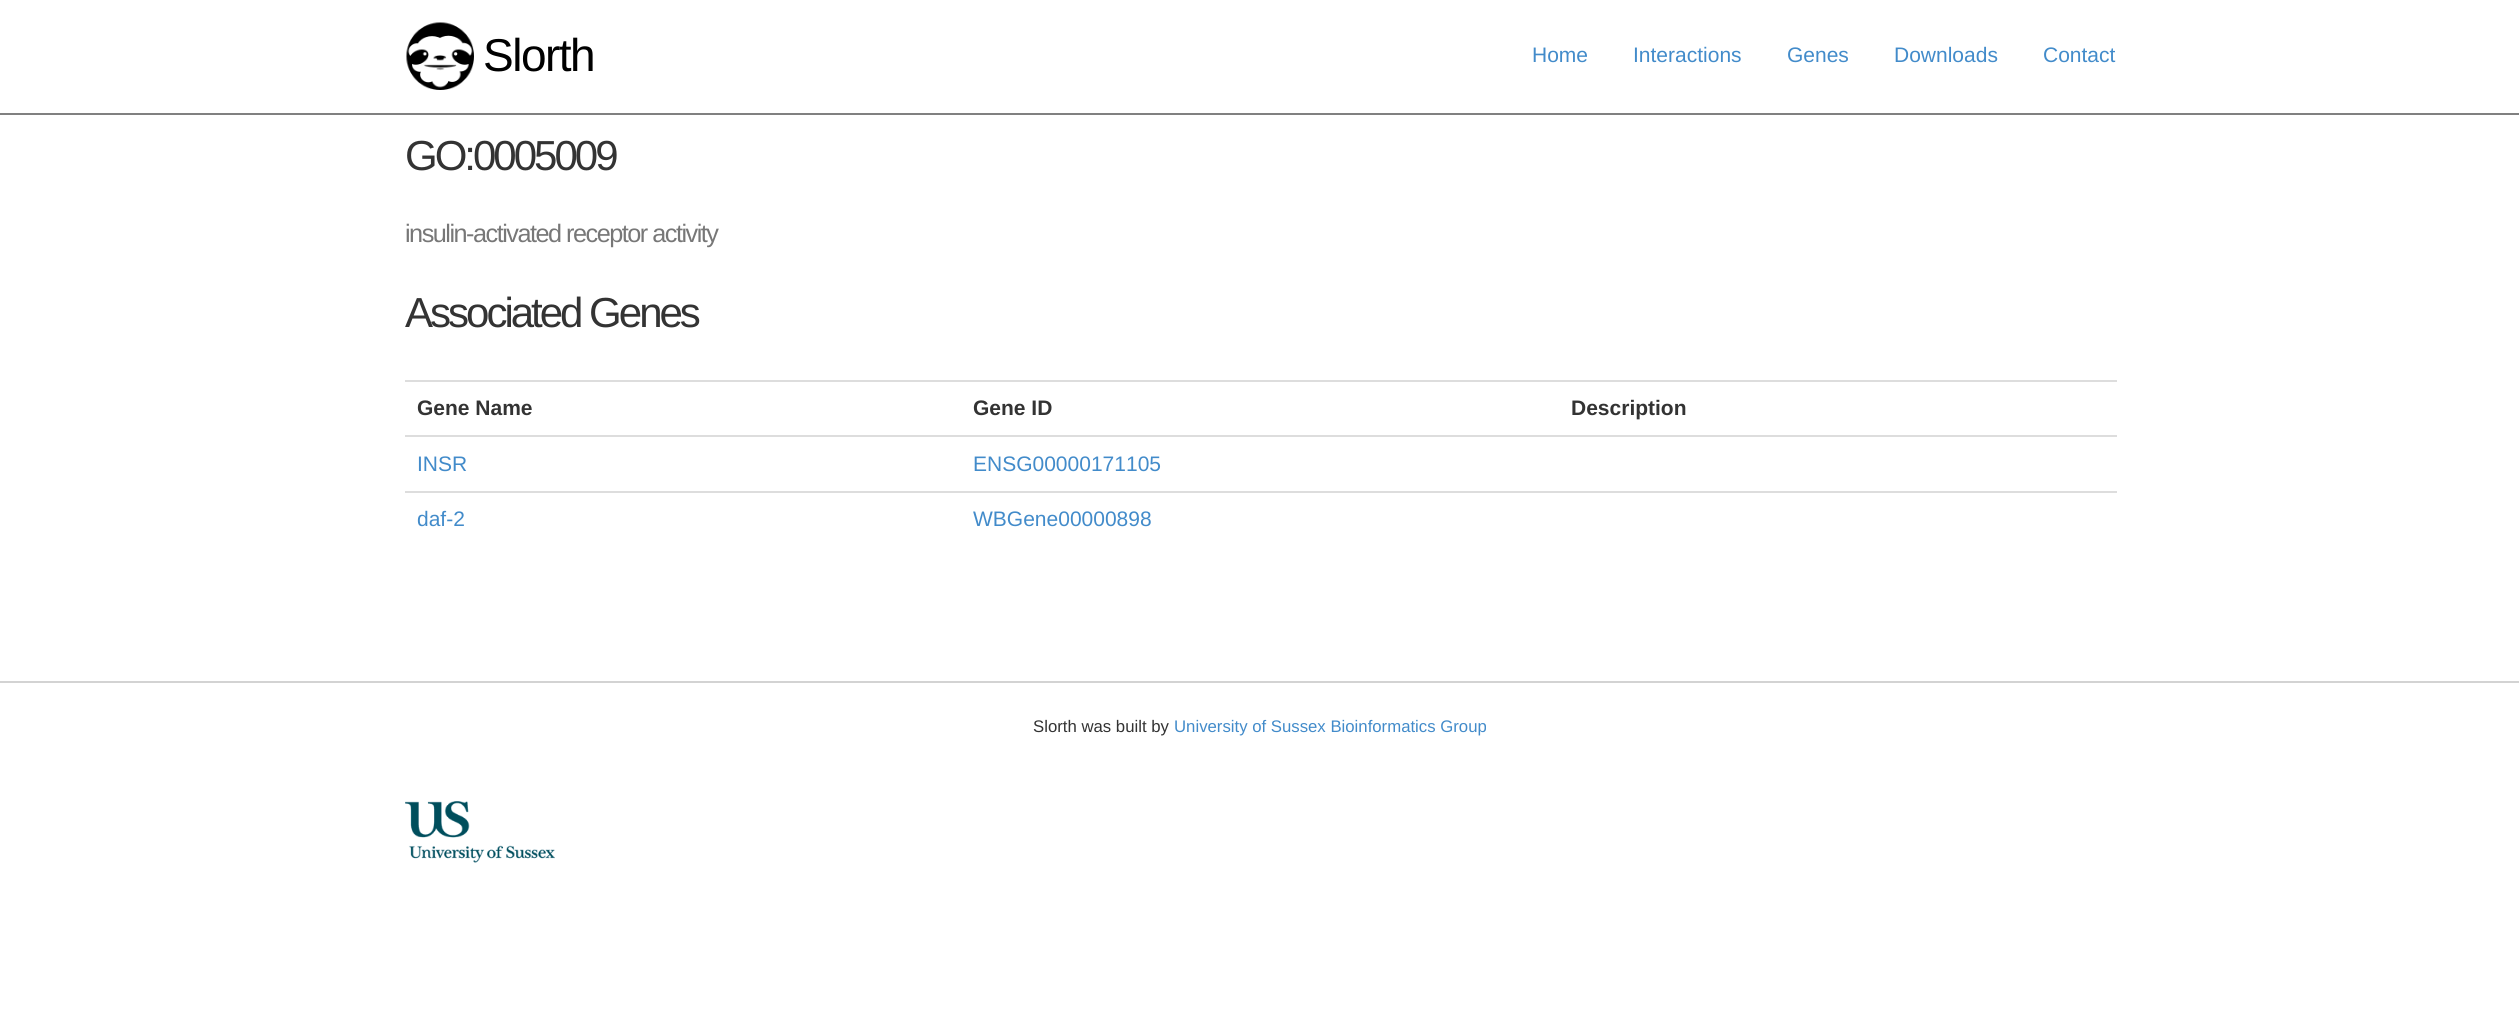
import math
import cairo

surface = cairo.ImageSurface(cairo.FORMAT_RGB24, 2519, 1012)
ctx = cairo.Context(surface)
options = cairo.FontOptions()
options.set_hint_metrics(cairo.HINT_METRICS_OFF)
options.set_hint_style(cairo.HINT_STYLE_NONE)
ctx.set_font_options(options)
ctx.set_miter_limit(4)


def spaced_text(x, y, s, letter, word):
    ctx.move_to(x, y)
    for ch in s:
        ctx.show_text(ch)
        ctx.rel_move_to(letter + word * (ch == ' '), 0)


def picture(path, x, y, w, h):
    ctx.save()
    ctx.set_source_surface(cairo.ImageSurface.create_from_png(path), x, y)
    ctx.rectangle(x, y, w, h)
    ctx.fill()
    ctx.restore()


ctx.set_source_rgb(1, 1, 1)
ctx.paint()
ctx.set_source_rgb(0.502, 0.502, 0.502)
ctx.rectangle(0, 113, 2519, 2)
ctx.fill()
picture("img1.png", 406, 22, 68, 68)
ctx.select_font_face("Liberation Sans")
ctx.set_font_size(46)
ctx.set_source_rgb(0, 0, 0)
spaced_text(483, 71, "Slorth", -1.5, 0)
ctx.set_font_size(21)
ctx.set_source_rgb(0.259, 0.545, 0.792)
ctx.move_to(1532, 62)
ctx.show_text("Home")
ctx.move_to(1633, 62)
ctx.show_text("Interactions")
ctx.move_to(1787, 62)
ctx.show_text("Genes")
ctx.move_to(1894, 62)
ctx.show_text("Downloads")
ctx.move_to(2043, 62)
ctx.show_text("Contact")
ctx.set_font_size(42)
ctx.set_source_rgb(0.2, 0.2, 0.2)
spaced_text(405, 170, "GO:0005009", -3, 0)
ctx.set_font_size(25.25)
ctx.set_source_rgb(0.467, 0.467, 0.467)
spaced_text(405, 242, "insulin-activated receptor activity", -1.5, 0)
ctx.set_font_size(42)
ctx.set_source_rgb(0.2, 0.2, 0.2)
spaced_text(405, 327, "Associated Genes", -3, 0)
ctx.select_font_face("Liberation Sans", cairo.FONT_SLANT_NORMAL, cairo.FONT_WEIGHT_BOLD)
ctx.set_font_size(21)
ctx.move_to(417, 415)
ctx.show_text("Gene Name")
ctx.move_to(973, 415)
ctx.show_text("Gene ID")
ctx.set_source_rgb(0.867, 0.867, 0.867)
ctx.rectangle(405, 380, 1712, 2)
ctx.fill()
ctx.set_source_rgb(0.2, 0.2, 0.2)
ctx.move_to(1571, 415)
ctx.show_text("Description")
ctx.set_source_rgb(0.867, 0.867, 0.867)
ctx.rectangle(405, 435, 1712, 2)
ctx.fill()
ctx.select_font_face("Liberation Sans")
ctx.set_source_rgb(0.259, 0.545, 0.792)
ctx.move_to(417, 471)
ctx.show_text("INSR")
ctx.move_to(973, 471)
ctx.show_text("ENSG00000171105")
ctx.set_source_rgb(0.867, 0.867, 0.867)
ctx.rectangle(405, 491, 1712, 2)
ctx.fill()
ctx.set_source_rgb(0.259, 0.545, 0.792)
ctx.move_to(417, 526)
ctx.show_text("daf-2")
ctx.move_to(973, 526)
ctx.show_text("WBGene00000898")
ctx.set_source_rgb(0.827, 0.827, 0.827)
ctx.rectangle(0, 681, 2519, 2)
ctx.fill()
ctx.set_font_size(16.75)
ctx.set_source_rgb(0.2, 0.2, 0.2)
ctx.move_to(1033, 732)
ctx.show_text("Slorth was built by")
ctx.set_source_rgb(0.259, 0.545, 0.792)
ctx.move_to(1174, 732)
ctx.show_text("University of Sussex Bioinformatics Group")
picture("img2.png", 405, 801, 150, 62)
surface.write_to_png("page.png")
